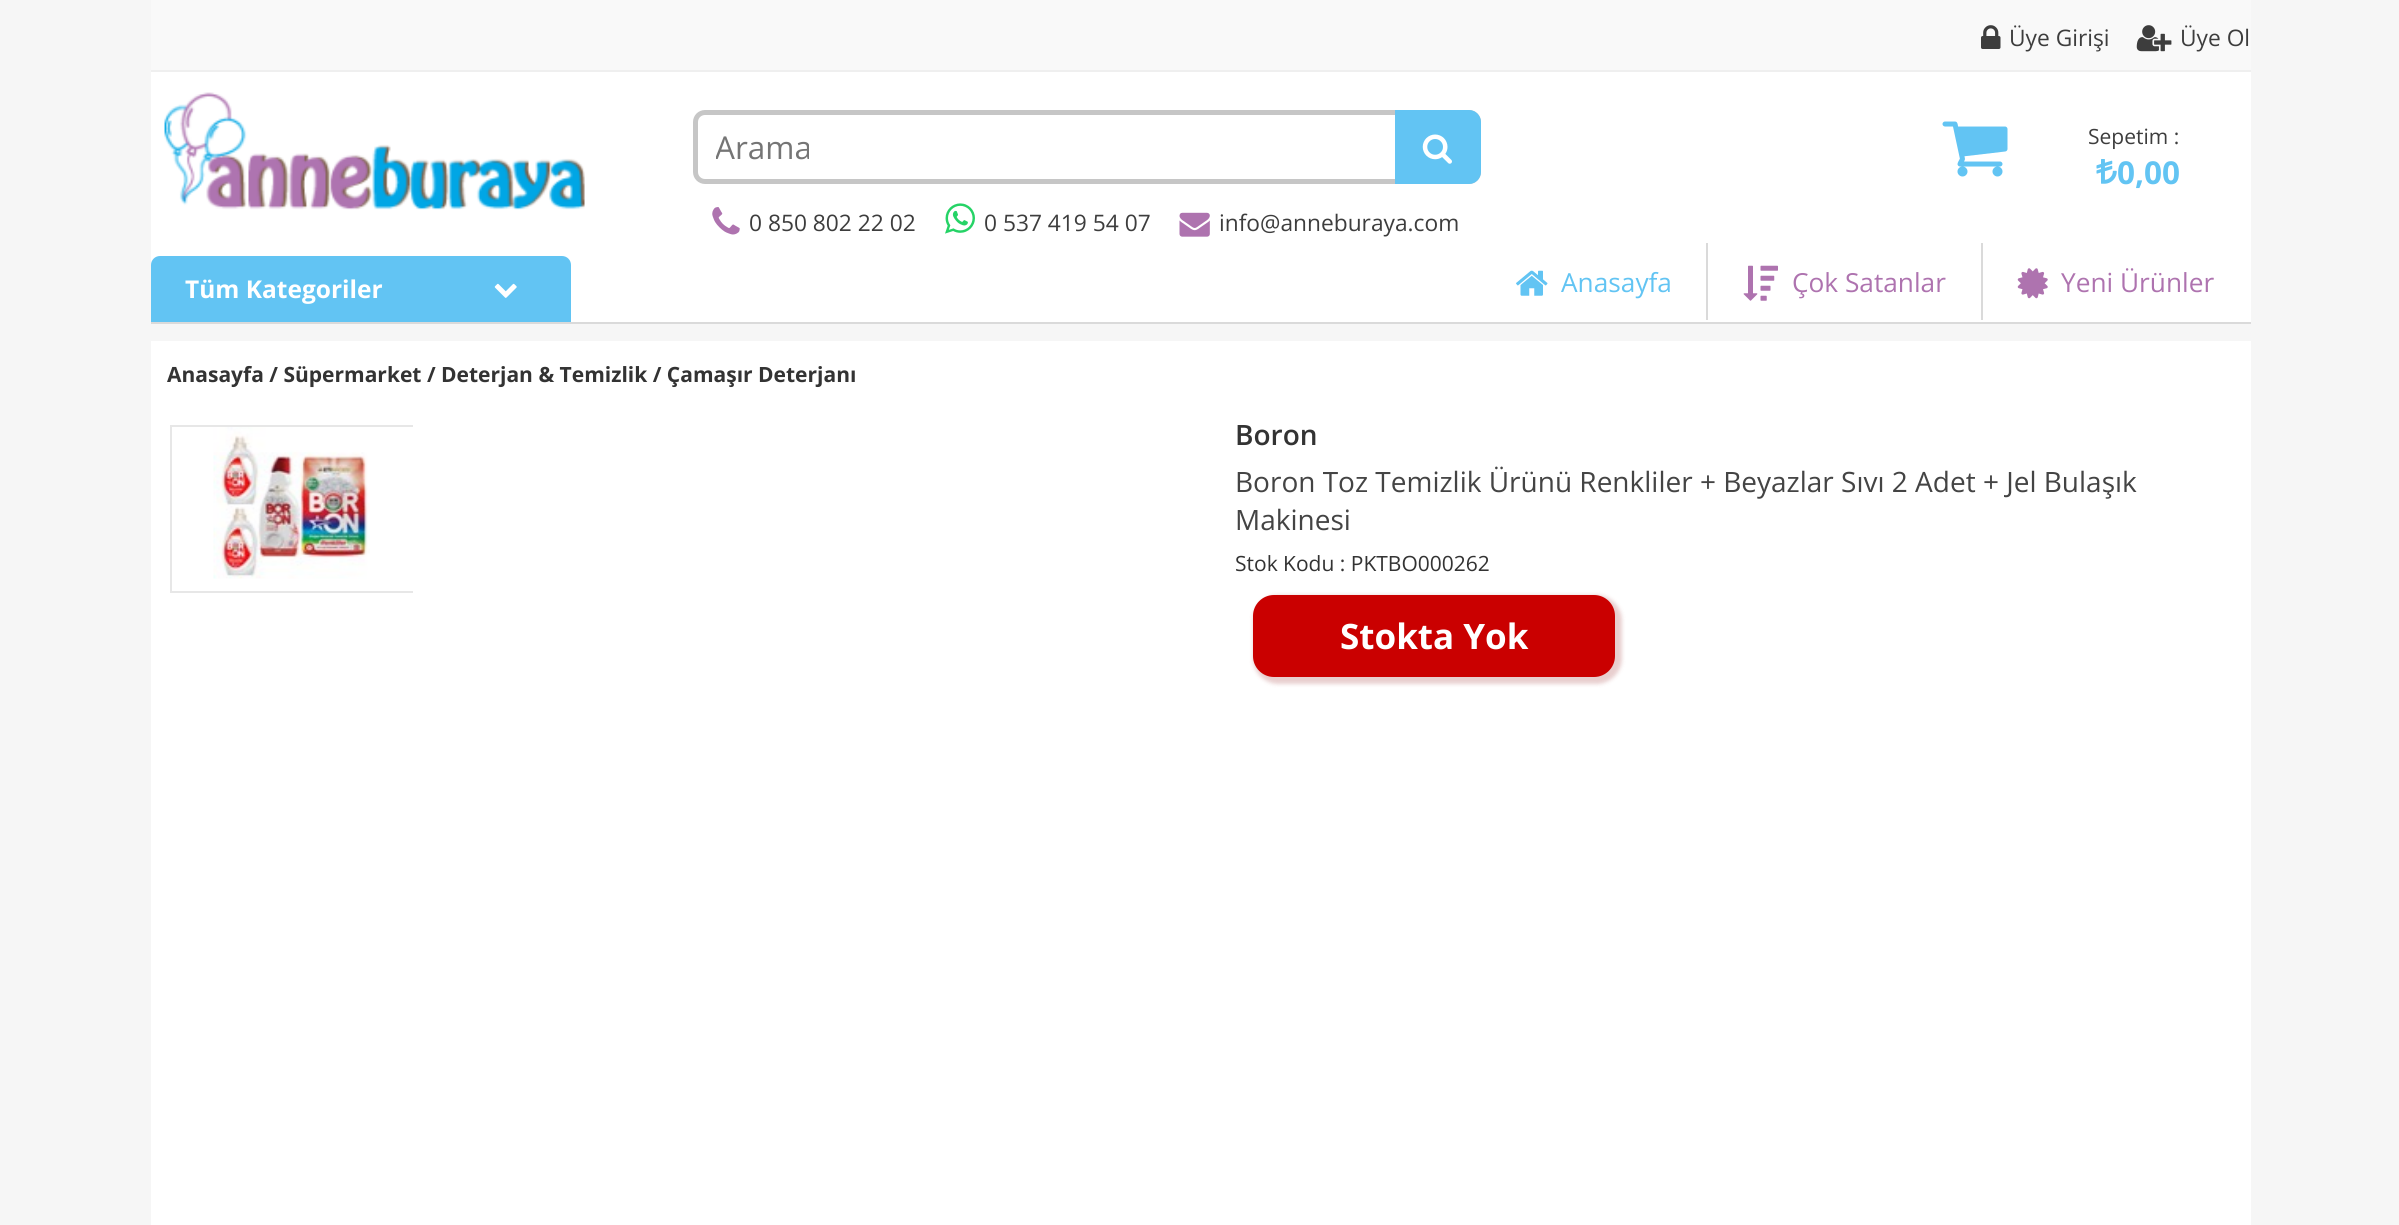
import math
import cairo

surface = cairo.ImageSurface(cairo.FORMAT_RGB24, 2399, 1225)
ctx = cairo.Context(surface)
options = cairo.FontOptions()
options.set_hint_metrics(cairo.HINT_METRICS_OFF)
options.set_hint_style(cairo.HINT_STYLE_NONE)
ctx.set_font_options(options)
ctx.set_miter_limit(4)


def round_rect(x, y, w, h, r):
    ctx.new_sub_path()
    for i, (u, v) in enumerate([(x + w - r, y + h - r), (x + r, y + h - r), (x + r, y + r), (x + w - r, y + r)]):
        ctx.arc(u, v, r, i * math.pi / 2, (i + 1) * math.pi / 2)
    ctx.close_path()


def shadow(x, y, w, h, r, blur, alpha):
    ctx.push_group_with_content(cairo.CONTENT_ALPHA)
    ctx.set_operator(cairo.OPERATOR_SOURCE)
    for i in range(15, -16, -2):
        e = blur * i / 6
        if min(w, h) + 2 * e > 0:
            ctx.set_source_rgba(0, 0, 0, alpha * math.erfc((i - 1) / 8.5) / 2)
            round_rect(x - e, y - e, w + 2 * e, h + 2 * e, max(0, min(r + e + blur * .6, min(w, h) / 2 + e)))
            ctx.fill()
    ctx.mask(ctx.pop_group())


def picture(path, x, y, w, h):
    ctx.save()
    ctx.set_source_surface(cairo.ImageSurface.create_from_png(path), x, y)
    ctx.rectangle(x, y, w, h)
    ctx.fill()
    ctx.restore()


ctx.set_source_rgb(0.961, 0.961, 0.961)
ctx.paint()
ctx.set_source_rgb(1, 1, 1)
ctx.rectangle(151, 72, 2100, 250)
ctx.fill()
ctx.set_source_rgb(0.976, 0.976, 0.976)
ctx.rectangle(151, 0, 2100, 70)
ctx.fill()
ctx.set_source_rgb(0.937, 0.937, 0.937)
ctx.rectangle(151, 70, 2100, 2)
ctx.fill()
picture("img1.png", 1981, 25, 20, 24)
ctx.select_font_face("Open Sans")
ctx.set_font_size(22.75)
ctx.set_source_rgb(0.239, 0.239, 0.239)
ctx.move_to(2009, 46)
ctx.show_text("Üye Girişi")
picture("img2.png", 2136, 25, 36, 27)
ctx.move_to(2180, 46)
ctx.show_text("Üye Ol")
picture("img3.png", 164, 92, 421, 118)
round_rect(695.5, 112.5, 783, 69, 9.5)
ctx.set_source_rgb(0.776, 0.776, 0.776)
ctx.set_line_width(5)
ctx.stroke()
ctx.save()
ctx.rectangle(716, 126, 670, 42)
ctx.clip()
ctx.set_font_size(31.5)
ctx.set_source_rgb(0.459, 0.459, 0.459)
ctx.move_to(715, 159)
ctx.show_text("Arama")
ctx.restore()
ctx.set_source_rgb(0.384, 0.769, 0.953)
ctx.new_path()
ctx.move_to(1395, 110)
ctx.line_to(1469, 110)
ctx.curve_to(1475.5, 110, 1481, 115.5, 1481, 122)
ctx.line_to(1481, 172)
ctx.curve_to(1481, 178.5, 1475.5, 184, 1469, 184)
ctx.line_to(1395, 184)
ctx.close_path()
ctx.fill()
picture("img4.png", 1422, 134, 30, 30)
picture("img5.png", 712, 207, 28, 28)
ctx.set_source_rgb(0.239, 0.239, 0.239)
ctx.move_to(749, 231)
ctx.show_text("0 850 802 22 02")
picture("img6.png", 945, 203, 30, 31)
ctx.move_to(984, 231)
ctx.show_text("0 537 419 54 07")
picture("img7.png", 1179, 212, 31, 25)
ctx.move_to(1219, 231)
ctx.show_text("info@anneburaya.com")
picture("img8.png", 1942, 121, 66, 56)
ctx.set_font_size(21)
ctx.move_to(2088, 144)
ctx.show_text("Sepetim :")
picture("img9.png", 2096, 159, 21, 25)
ctx.select_font_face("Open Sans", cairo.FONT_SLANT_NORMAL, cairo.FONT_WEIGHT_BOLD)
ctx.set_font_size(31.5)
ctx.set_source_rgb(0.384, 0.769, 0.953)
ctx.move_to(2117, 184)
ctx.show_text("0,00")
ctx.set_source_rgb(0.855, 0.855, 0.855)
ctx.rectangle(151, 322, 2100, 2)
ctx.fill()
ctx.set_source_rgb(0.384, 0.769, 0.953)
ctx.new_path()
ctx.move_to(160, 256)
ctx.line_to(562, 256)
ctx.curve_to(567, 256, 571, 260, 571, 265)
ctx.line_to(571, 322)
ctx.line_to(151, 322)
ctx.line_to(151, 265)
ctx.curve_to(151, 260, 155, 256, 160, 256)
ctx.close_path()
ctx.fill()
ctx.set_font_size(24.5)
ctx.set_source_rgb(1, 1, 1)
ctx.move_to(185, 298)
ctx.show_text("Tüm Kategoriler")
picture("img10.png", 494, 283, 23, 15)
ctx.set_source_rgb(0.855, 0.855, 0.855)
ctx.rectangle(1706, 243, 2, 77)
ctx.fill()
picture("img11.png", 1516, 270, 32, 26)
ctx.select_font_face("Open Sans")
ctx.set_font_size(26.25)
ctx.set_source_rgb(0.384, 0.769, 0.953)
ctx.move_to(1561, 292)
ctx.show_text("Anasayfa")
ctx.set_source_rgb(0.855, 0.855, 0.855)
ctx.rectangle(1981, 243, 2, 77)
ctx.fill()
picture("img12.png", 1743, 265, 35, 36)
ctx.set_source_rgb(0.682, 0.451, 0.686)
ctx.move_to(1792, 292)
ctx.show_text("Çok Satanlar")
picture("img13.png", 2017, 268, 31, 31)
ctx.move_to(2061, 292)
ctx.show_text("Yeni Ürünler")
ctx.set_source_rgb(1, 1, 1)
ctx.rectangle(151, 341, 2100, 884)
ctx.fill()
ctx.select_font_face("Open Sans", cairo.FONT_SLANT_NORMAL, cairo.FONT_WEIGHT_BOLD)
ctx.set_font_size(21)
ctx.set_source_rgb(0.2, 0.2, 0.2)
ctx.move_to(167, 382)
ctx.show_text("Anasayfa / Süpermarket / Deterjan & Temizlik / Çamaşır Deterjanı")
ctx.save()
ctx.rectangle(168, 424, 245, 514)
ctx.clip()
ctx.rectangle(171, 426, 243, 166)
ctx.set_source_rgb(0.906, 0.906, 0.906)
ctx.set_line_width(2)
ctx.stroke()
ctx.restore()
picture("img14.png", 213, 427, 157, 152)
ctx.select_font_face("Open Sans SemiBold")
ctx.set_font_size(28)
ctx.move_to(1235, 445)
ctx.show_text("Boron")
ctx.select_font_face("Open Sans")
ctx.set_source_rgb(0.267, 0.267, 0.267)
ctx.move_to(1235, 492)
ctx.show_text("Boron Toz Temizlik Ürünü Renkliler + Beyazlar Sıvı 2 Adet + Jel Bulaşık")
ctx.move_to(1235, 530)
ctx.show_text("Makinesi")
ctx.set_font_size(21)
ctx.set_source_rgb(0.2, 0.2, 0.2)
ctx.move_to(1235, 571)
ctx.show_text("Stok Kodu : PKTBO000262")
ctx.set_source_rgb(0.525, 0, 0)
shadow(1253, 595, 369, 89, 25, 2, 0.19)
ctx.set_source_rgb(0.792, 0, 0)
round_rect(1253, 595, 362, 82, 21)
ctx.fill()
ctx.select_font_face("Open Sans", cairo.FONT_SLANT_NORMAL, cairo.FONT_WEIGHT_BOLD)
ctx.set_font_size(35)
ctx.set_source_rgb(1, 1, 1)
ctx.move_to(1340, 649)
ctx.show_text("Stokta Yok")
surface.write_to_png("page.png")
